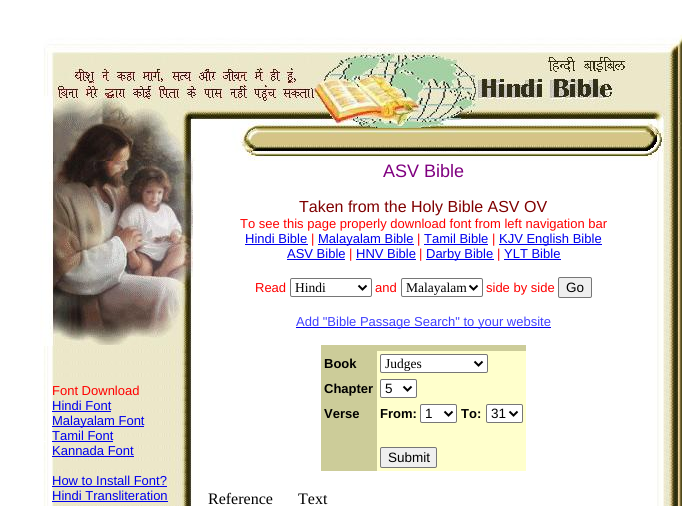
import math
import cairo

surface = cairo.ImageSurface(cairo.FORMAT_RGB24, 682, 506)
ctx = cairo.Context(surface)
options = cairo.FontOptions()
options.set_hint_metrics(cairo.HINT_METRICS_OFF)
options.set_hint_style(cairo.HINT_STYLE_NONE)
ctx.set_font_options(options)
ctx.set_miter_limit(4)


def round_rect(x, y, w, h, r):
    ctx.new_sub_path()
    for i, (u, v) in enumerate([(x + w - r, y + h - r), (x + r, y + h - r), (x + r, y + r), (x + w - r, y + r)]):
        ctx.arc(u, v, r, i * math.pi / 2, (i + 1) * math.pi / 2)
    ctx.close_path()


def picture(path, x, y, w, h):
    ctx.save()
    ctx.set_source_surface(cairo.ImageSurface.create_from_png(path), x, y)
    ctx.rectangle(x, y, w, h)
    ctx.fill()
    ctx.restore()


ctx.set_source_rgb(1, 1, 1)
ctx.paint()
picture("img1.png", 43, 34, 639, 127)
picture("img2.png", 43, 161, 639, 345)
picture("img3.png", 40, 161, 153, 185)
ctx.set_source_rgb(1, 1, 1)
ctx.rectangle(43, 441, 3, 1)
ctx.fill()
ctx.select_font_face("Liberation Sans")
ctx.set_font_size(13)
ctx.set_source_rgb(1, 0, 0)
ctx.move_to(52, 395)
ctx.show_text("Font Download")
ctx.set_source_rgb(0, 0, 0.933)
ctx.move_to(52, 410)
ctx.show_text("Hindi Font")
ctx.rectangle(52, 411, 59, 1)
ctx.fill()
ctx.rectangle(52, 426, 92, 1)
ctx.fill()
ctx.move_to(52, 425)
ctx.show_text("Malayalam Font")
ctx.move_to(52, 440)
ctx.show_text("Tamil Font")
ctx.rectangle(52, 441, 61, 1)
ctx.fill()
ctx.move_to(52, 455)
ctx.show_text("Kannada Font")
ctx.rectangle(52, 456, 82, 1)
ctx.fill()
ctx.move_to(52, 485)
ctx.show_text("How to Install Font?")
ctx.rectangle(52, 486, 115, 1)
ctx.fill()
ctx.move_to(52, 500)
ctx.show_text("Hindi Transliteration")
ctx.rectangle(52, 501, 116, 1)
ctx.fill()
ctx.set_font_size(18)
ctx.set_source_rgb(0.502, 0, 0.502)
ctx.move_to(383, 177)
ctx.show_text("ASV Bible")
ctx.set_font_size(16)
ctx.set_source_rgb(0.502, 0, 0)
ctx.move_to(299, 212)
ctx.show_text("Taken from the Holy Bible ASV OV")
ctx.set_font_size(13)
ctx.set_source_rgb(1, 0, 0)
ctx.move_to(240, 228)
ctx.show_text("To see this page properly download font from left navigation bar")
ctx.set_source_rgb(0, 0, 0.933)
ctx.move_to(245, 243)
ctx.show_text("Hindi Bible")
ctx.rectangle(245, 244, 63, 1)
ctx.fill()
ctx.set_source_rgb(1, 0, 0)
ctx.move_to(311, 243)
ctx.show_text("|")
ctx.set_source_rgb(0, 0, 0.933)
ctx.rectangle(318, 244, 96, 1)
ctx.fill()
ctx.move_to(318, 243)
ctx.show_text("Malayalam Bible")
ctx.set_source_rgb(1, 0, 0)
ctx.move_to(417, 243)
ctx.show_text("|")
ctx.set_source_rgb(0, 0, 0.933)
ctx.move_to(424, 243)
ctx.show_text("Tamil Bible")
ctx.rectangle(424, 244, 64, 1)
ctx.fill()
ctx.set_source_rgb(1, 0, 0)
ctx.move_to(492, 243)
ctx.show_text("|")
ctx.set_source_rgb(0, 0, 0.933)
ctx.rectangle(499, 244, 103, 1)
ctx.fill()
ctx.move_to(499, 243)
ctx.show_text("KJV English Bible")
ctx.move_to(287, 258)
ctx.show_text("ASV Bible")
ctx.rectangle(287, 259, 58, 1)
ctx.fill()
ctx.set_source_rgb(1, 0, 0)
ctx.move_to(349, 258)
ctx.show_text("|")
ctx.set_source_rgb(0, 0, 0.933)
ctx.move_to(356, 258)
ctx.show_text("HNV Bible")
ctx.rectangle(356, 259, 60, 1)
ctx.fill()
ctx.set_source_rgb(1, 0, 0)
ctx.move_to(419, 258)
ctx.show_text("|")
ctx.set_source_rgb(0, 0, 0.933)
ctx.rectangle(426, 259, 68, 1)
ctx.fill()
ctx.move_to(426, 258)
ctx.show_text("Darby Bible")
ctx.set_source_rgb(1, 0, 0)
ctx.move_to(497, 258)
ctx.show_text("|")
ctx.set_source_rgb(0, 0, 0.933)
ctx.move_to(504, 258)
ctx.show_text("YLT Bible")
ctx.rectangle(504, 259, 57, 1)
ctx.fill()
ctx.set_source_rgb(1, 0, 0)
ctx.move_to(255, 292)
ctx.show_text("Read")
round_rect(290.5, 278.5, 81, 18, 1.5)
ctx.set_source_rgb(0.463, 0.463, 0.463)
ctx.set_line_width(1)
ctx.stroke()
ctx.new_path()
ctx.move_to(358.5, 285.5)
ctx.line_to(362.5, 289.5)
ctx.line_to(366.5, 285.5)
ctx.set_source_rgb(0, 0, 0)
ctx.set_line_width(2)
ctx.stroke()
ctx.select_font_face("Liberation Serif")
ctx.set_font_size(13.5)
ctx.move_to(295, 292)
ctx.show_text("Hindi")
ctx.select_font_face("Liberation Sans")
ctx.set_font_size(13)
ctx.set_source_rgb(1, 0, 0)
ctx.move_to(375, 292)
ctx.show_text("and")
round_rect(401.5, 278.5, 81, 18, 1.5)
ctx.set_source_rgb(0.463, 0.463, 0.463)
ctx.set_line_width(1)
ctx.stroke()
ctx.new_path()
ctx.move_to(469.5, 285.5)
ctx.line_to(473.5, 289.5)
ctx.line_to(477.5, 285.5)
ctx.set_source_rgb(0, 0, 0)
ctx.set_line_width(2)
ctx.stroke()
ctx.select_font_face("Liberation Serif")
ctx.set_font_size(13.5)
ctx.move_to(406, 292)
ctx.show_text("Malayalam")
ctx.select_font_face("Liberation Sans")
ctx.set_font_size(13)
ctx.set_source_rgb(1, 0, 0)
ctx.move_to(486, 292)
ctx.show_text("side by side")
ctx.set_source_rgb(0.937, 0.937, 0.937)
round_rect(558.5, 277.5, 33, 20, 1.5)
ctx.fill_preserve()
ctx.set_source_rgb(0.463, 0.463, 0.463)
ctx.set_line_width(1)
ctx.stroke()
ctx.set_font_size(13.5)
ctx.set_source_rgb(0, 0, 0)
ctx.move_to(566, 292)
ctx.show_text("Go")
ctx.set_source_rgb(0, 0, 0.933)
ctx.rectangle(296, 327, 255, 1)
ctx.fill()
ctx.set_font_size(13)
ctx.set_source_rgb(0.251, 0.251, 1)
ctx.move_to(296, 326)
ctx.show_text("Add \"Bible Passage Search\" to your website")
ctx.set_source_rgb(0.8, 0.8, 0.6)
ctx.rectangle(321, 345, 205, 6)
ctx.fill()
ctx.set_source_rgb(1, 1, 0.8)
ctx.rectangle(377, 351, 149, 120)
ctx.fill()
ctx.set_source_rgb(0.8, 0.8, 0.6)
ctx.rectangle(321, 351, 56, 120)
ctx.fill()
ctx.select_font_face("Liberation Sans", cairo.FONT_SLANT_NORMAL, cairo.FONT_WEIGHT_BOLD)
ctx.set_source_rgb(0, 0, 0)
ctx.move_to(324, 368)
ctx.show_text("Book")
ctx.set_source_rgb(1, 1, 1)
round_rect(380.5, 354.5, 107, 18, 1.5)
ctx.fill_preserve()
ctx.set_source_rgb(0.463, 0.463, 0.463)
ctx.stroke()
ctx.new_path()
ctx.move_to(474.5, 361.5)
ctx.line_to(478.5, 365.5)
ctx.line_to(482.5, 361.5)
ctx.set_source_rgb(0, 0, 0)
ctx.set_line_width(2)
ctx.stroke()
ctx.select_font_face("Liberation Serif")
ctx.set_font_size(13.5)
ctx.move_to(385, 368)
ctx.show_text("Judges")
ctx.select_font_face("Liberation Sans", cairo.FONT_SLANT_NORMAL, cairo.FONT_WEIGHT_BOLD)
ctx.set_font_size(13)
ctx.move_to(324, 393)
ctx.show_text("Chapter")
ctx.set_source_rgb(1, 1, 1)
round_rect(380.5, 379.5, 36, 18, 1.5)
ctx.fill_preserve()
ctx.set_source_rgb(0.463, 0.463, 0.463)
ctx.set_line_width(1)
ctx.stroke()
ctx.new_path()
ctx.move_to(403.5, 386.5)
ctx.line_to(407.5, 390.5)
ctx.line_to(411.5, 386.5)
ctx.set_source_rgb(0, 0, 0)
ctx.set_line_width(2)
ctx.stroke()
ctx.select_font_face("Liberation Sans")
ctx.set_font_size(13.5)
ctx.move_to(385, 393)
ctx.show_text("5")
ctx.select_font_face("Liberation Sans", cairo.FONT_SLANT_NORMAL, cairo.FONT_WEIGHT_BOLD)
ctx.set_font_size(13)
ctx.move_to(324, 418)
ctx.show_text("Verse")
ctx.move_to(380, 418)
ctx.show_text("From:")
ctx.set_source_rgb(1, 1, 1)
round_rect(420.5, 404.5, 36, 18, 1.5)
ctx.fill_preserve()
ctx.set_source_rgb(0.463, 0.463, 0.463)
ctx.set_line_width(1)
ctx.stroke()
ctx.new_path()
ctx.move_to(444.5, 411.5)
ctx.line_to(448.5, 415.5)
ctx.line_to(452.5, 411.5)
ctx.set_source_rgb(0, 0, 0)
ctx.set_line_width(2)
ctx.stroke()
ctx.select_font_face("Liberation Sans")
ctx.set_font_size(13.5)
ctx.move_to(425, 418)
ctx.show_text("1")
ctx.select_font_face("Liberation Sans", cairo.FONT_SLANT_NORMAL, cairo.FONT_WEIGHT_BOLD)
ctx.set_font_size(13)
ctx.move_to(461, 418)
ctx.show_text("To:")
ctx.set_source_rgb(1, 1, 1)
round_rect(486.5, 404.5, 36, 18, 1.5)
ctx.fill_preserve()
ctx.set_source_rgb(0.463, 0.463, 0.463)
ctx.set_line_width(1)
ctx.stroke()
ctx.new_path()
ctx.move_to(509.5, 411.5)
ctx.line_to(513.5, 415.5)
ctx.line_to(517.5, 411.5)
ctx.set_source_rgb(0, 0, 0)
ctx.set_line_width(2)
ctx.stroke()
ctx.select_font_face("Liberation Sans")
ctx.set_font_size(13.5)
ctx.move_to(491, 418)
ctx.show_text("31")
ctx.set_source_rgb(0.937, 0.937, 0.937)
round_rect(380.5, 447.5, 56, 20, 1.5)
ctx.fill_preserve()
ctx.set_source_rgb(0.463, 0.463, 0.463)
ctx.set_line_width(1)
ctx.stroke()
ctx.set_source_rgb(0, 0, 0)
ctx.move_to(388, 462)
ctx.show_text("Submit")
ctx.select_font_face("Liberation Serif")
ctx.set_font_size(16)
ctx.move_to(208, 504)
ctx.show_text("Reference")
ctx.move_to(298, 504)
ctx.show_text("Text")
surface.write_to_png("page.png")
